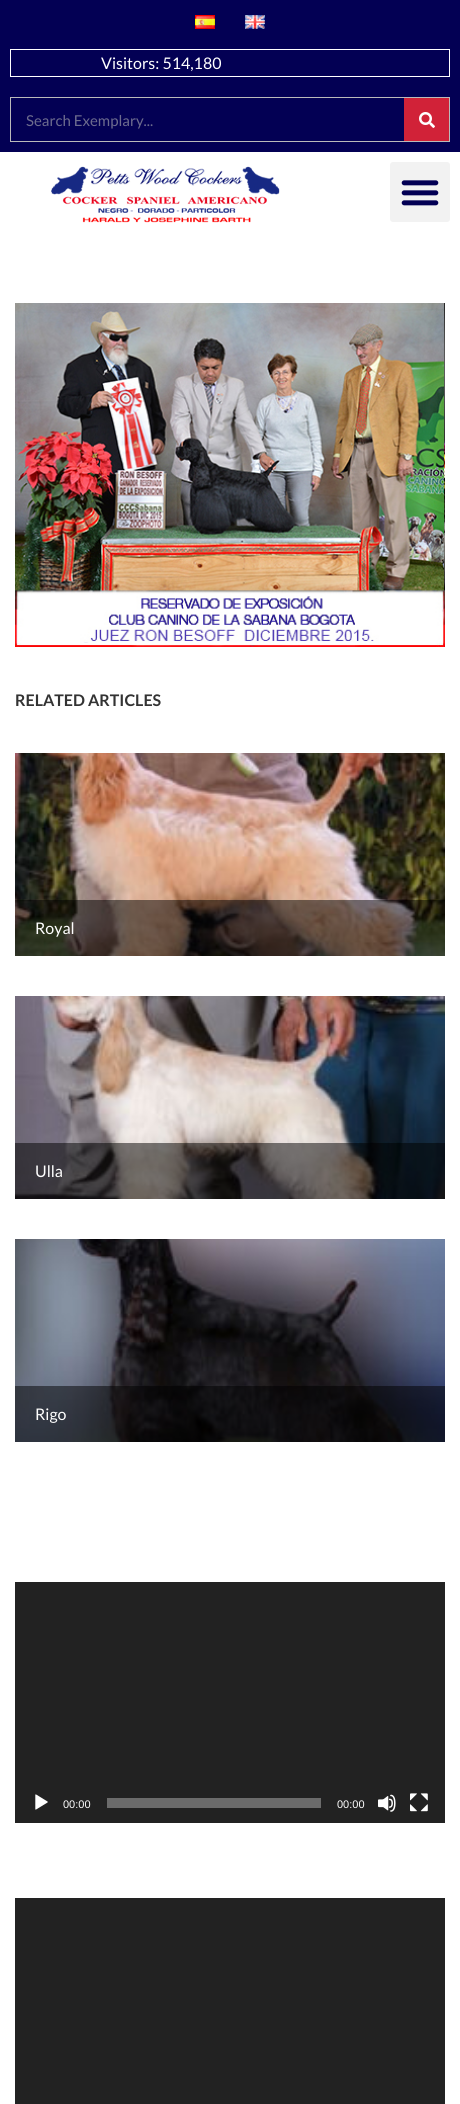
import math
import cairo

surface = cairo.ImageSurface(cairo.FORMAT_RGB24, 460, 2104)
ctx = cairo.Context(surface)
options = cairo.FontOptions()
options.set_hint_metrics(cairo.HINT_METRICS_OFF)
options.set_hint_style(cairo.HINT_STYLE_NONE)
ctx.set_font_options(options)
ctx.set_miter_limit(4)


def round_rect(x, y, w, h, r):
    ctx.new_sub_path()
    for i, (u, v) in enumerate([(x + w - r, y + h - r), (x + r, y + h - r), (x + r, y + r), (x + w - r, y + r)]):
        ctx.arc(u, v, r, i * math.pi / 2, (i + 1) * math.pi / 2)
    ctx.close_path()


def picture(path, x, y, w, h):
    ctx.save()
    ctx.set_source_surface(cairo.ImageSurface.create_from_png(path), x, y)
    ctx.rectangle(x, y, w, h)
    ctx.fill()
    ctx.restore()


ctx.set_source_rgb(1, 1, 1)
ctx.paint()
ctx.set_source_rgb(0.012, 0, 0.329)
ctx.rectangle(0, 0, 460, 152)
ctx.fill()
picture("img1.png", 195, 15, 20, 14)
picture("img2.png", 245, 15, 20, 14)
ctx.rectangle(10.5, 49.5, 439, 27)
ctx.set_source_rgb(1, 1, 1)
ctx.set_line_width(1)
ctx.stroke()
ctx.select_font_face("Lato")
ctx.set_font_size(16)
ctx.move_to(101, 69)
ctx.show_text("Visitors: 514,180")
ctx.rectangle(10.5, 97.5, 439, 44)
ctx.set_source_rgb(0.729, 0.729, 0.729)
ctx.stroke()
ctx.set_font_size(15)
ctx.set_source_rgb(0.427, 0.424, 0.557)
ctx.move_to(26, 126)
ctx.show_text("Search Exemplary...")
ctx.set_source_rgb(0.82, 0.133, 0.22)
ctx.rectangle(404, 98, 45, 43)
ctx.fill()
picture("img3.png", 419, 112, 16, 16)
picture("img4.png", 51, 166, 229, 57)
ctx.set_source_rgb(0.949, 0.949, 0.949)
round_rect(390, 162, 60, 60, 3)
ctx.fill()
picture("img5.png", 401, 180, 38, 26)
picture("img6.png", 15, 303, 430, 344)
ctx.select_font_face("Lato", cairo.FONT_SLANT_NORMAL, cairo.FONT_WEIGHT_BOLD)
ctx.set_font_size(16)
ctx.set_source_rgb(0.2, 0.2, 0.2)
ctx.move_to(15, 706)
ctx.show_text("RELATED ARTICLES")
picture("img7.png", 15, 753, 430, 203)
ctx.set_source_rgba(0, 0, 0, 0.5)
ctx.rectangle(15, 900, 430, 56)
ctx.fill()
ctx.select_font_face("Lato")
ctx.set_source_rgb(1, 1, 1)
ctx.move_to(35, 934)
ctx.show_text("Royal")
picture("img8.png", 15, 996, 430, 203)
ctx.set_source_rgba(0, 0, 0, 0.5)
ctx.rectangle(15, 1143, 430, 56)
ctx.fill()
ctx.set_source_rgb(1, 1, 1)
ctx.move_to(35, 1177)
ctx.show_text("Ulla")
picture("img9.png", 15, 1239, 430, 203)
ctx.set_source_rgba(0, 0, 0, 0.5)
ctx.rectangle(15, 1386, 430, 56)
ctx.fill()
ctx.set_source_rgb(1, 1, 1)
ctx.move_to(35, 1420)
ctx.show_text("Rigo")
ctx.set_source_rgb(0.133, 0.133, 0.133)
ctx.rectangle(15, 1582, 430, 241)
ctx.fill()
picture("img10.png", 35, 1794, 13, 16)
ctx.select_font_face("Liberation Sans")
ctx.set_font_size(11)
ctx.set_source_rgb(1, 1, 1)
ctx.move_to(63, 1808)
ctx.show_text("00:00")
ctx.set_source_rgb(0.42, 0.42, 0.42)
ctx.rectangle(107, 1798, 214, 10)
ctx.fill()
ctx.set_source_rgb(1, 1, 1)
ctx.move_to(337, 1808)
ctx.show_text("00:00")
picture("img11.png", 378, 1794, 18, 18)
picture("img12.png", 410, 1793, 18, 19)
ctx.set_source_rgb(0.133, 0.133, 0.133)
ctx.rectangle(15, 1898, 430, 206)
ctx.fill()
surface.write_to_png("page.png")
